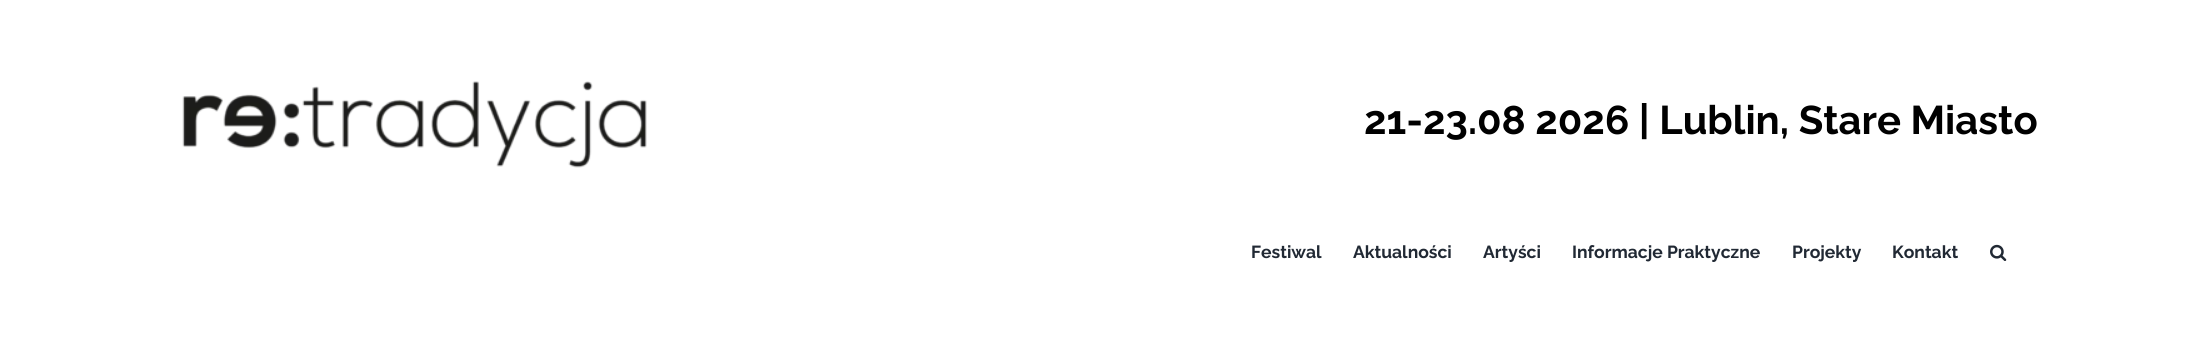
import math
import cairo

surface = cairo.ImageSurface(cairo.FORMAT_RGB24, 2202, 339)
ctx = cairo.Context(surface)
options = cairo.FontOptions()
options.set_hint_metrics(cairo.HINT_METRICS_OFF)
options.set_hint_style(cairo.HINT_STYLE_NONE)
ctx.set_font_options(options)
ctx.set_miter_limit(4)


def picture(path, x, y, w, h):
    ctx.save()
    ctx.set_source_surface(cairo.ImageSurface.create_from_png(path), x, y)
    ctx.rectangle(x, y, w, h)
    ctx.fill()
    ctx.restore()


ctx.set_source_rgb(1, 1, 1)
ctx.paint()
picture("img1.png", 182, 81, 465, 87)
ctx.select_font_face("Raleway", cairo.FONT_SLANT_NORMAL, cairo.FONT_WEIGHT_BOLD)
ctx.set_font_size(40)
ctx.set_source_rgb(0, 0, 0)
ctx.move_to(1364, 134)
ctx.show_text("21-23.08 2026 | Lublin, Stare Miasto")
ctx.set_font_size(17.5)
ctx.set_source_rgb(0.129, 0.161, 0.204)
ctx.move_to(1251, 258)
ctx.show_text("Festiwal")
ctx.move_to(1353, 258)
ctx.show_text("Aktualności")
ctx.move_to(1483, 258)
ctx.show_text("Artyści")
ctx.move_to(1572, 258)
ctx.show_text("Informacje Praktyczne")
ctx.move_to(1792, 258)
ctx.show_text("Projekty")
ctx.move_to(1892, 258)
ctx.show_text("Kontakt")
picture("img2.png", 1990, 244, 17, 17)
surface.write_to_png("page.png")
